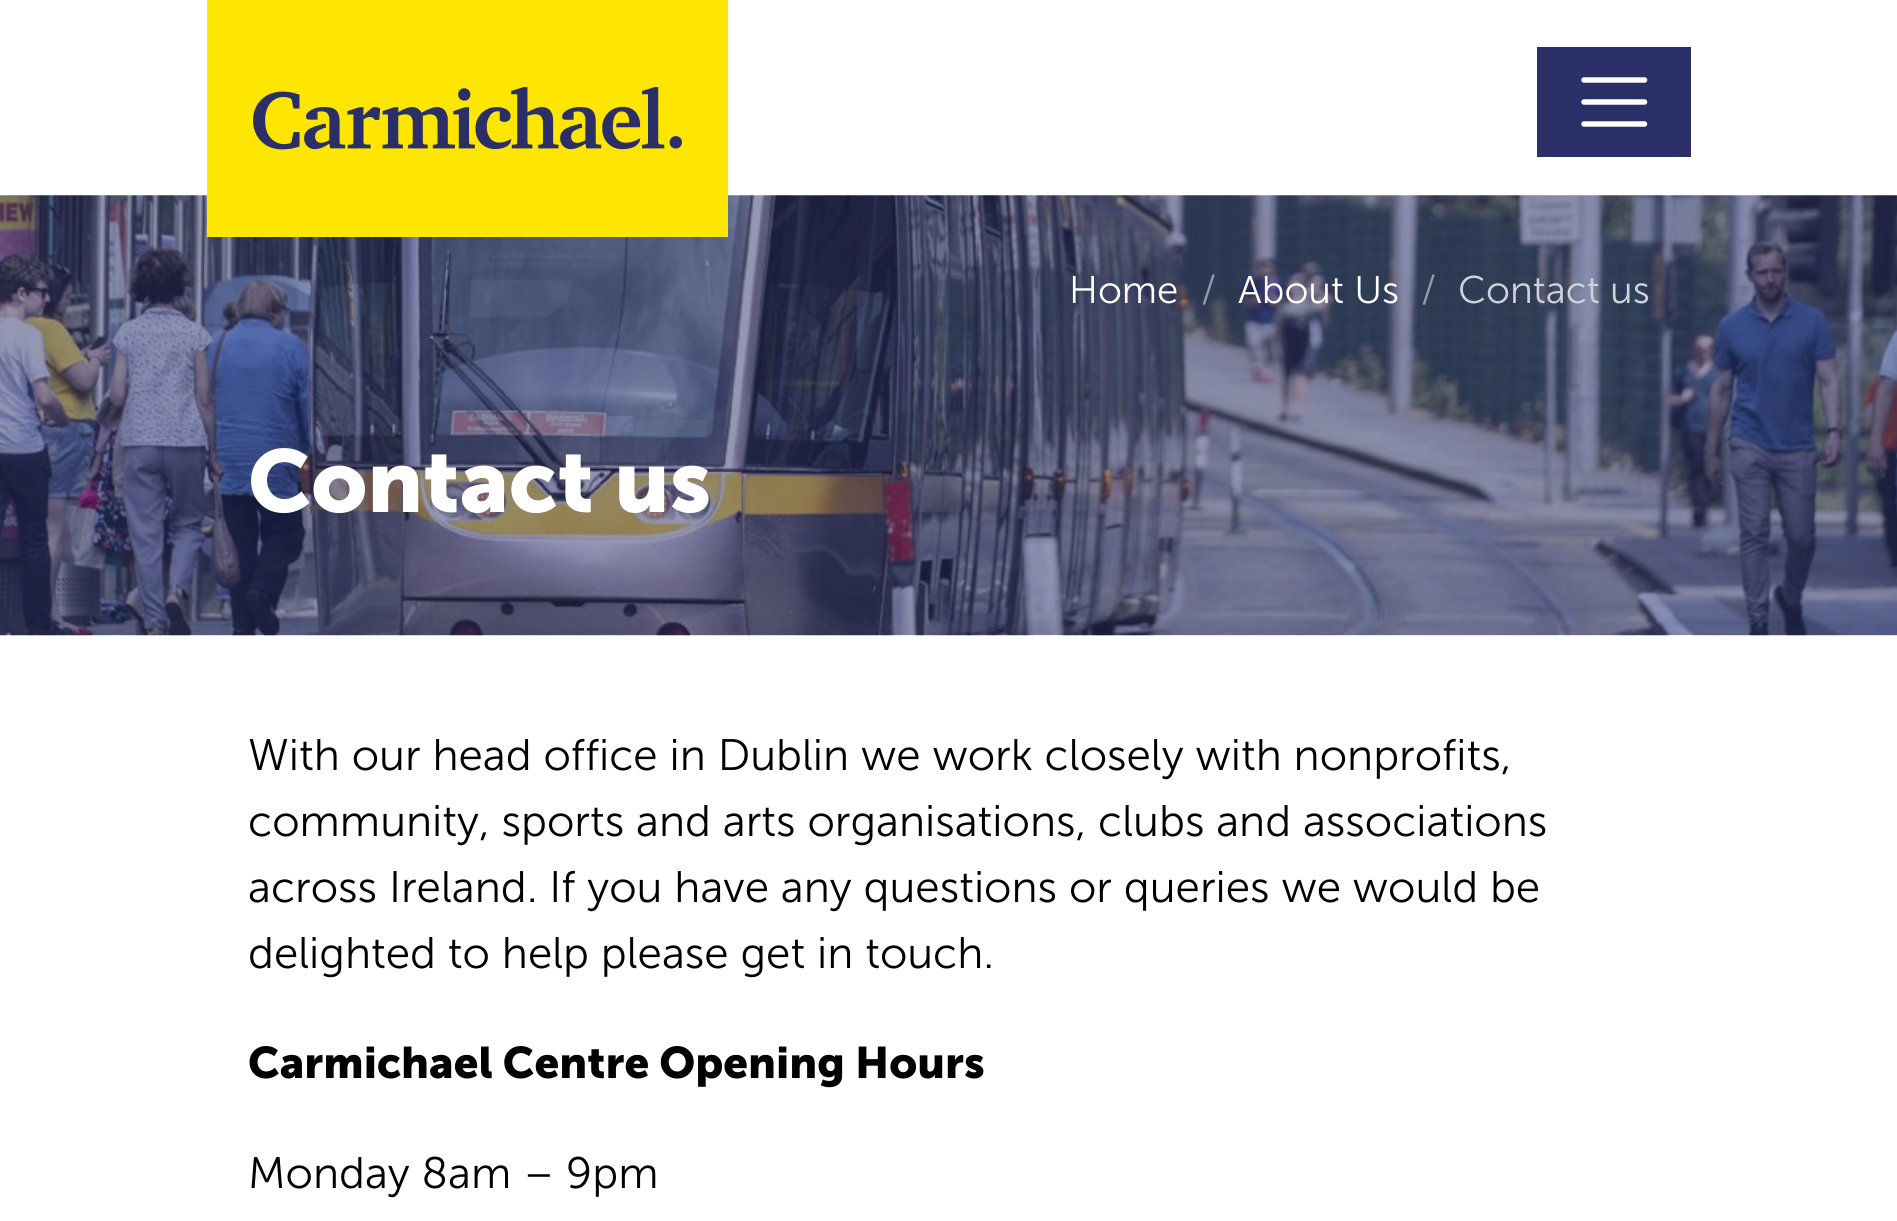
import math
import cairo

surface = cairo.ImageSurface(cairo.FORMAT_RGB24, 1897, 1221)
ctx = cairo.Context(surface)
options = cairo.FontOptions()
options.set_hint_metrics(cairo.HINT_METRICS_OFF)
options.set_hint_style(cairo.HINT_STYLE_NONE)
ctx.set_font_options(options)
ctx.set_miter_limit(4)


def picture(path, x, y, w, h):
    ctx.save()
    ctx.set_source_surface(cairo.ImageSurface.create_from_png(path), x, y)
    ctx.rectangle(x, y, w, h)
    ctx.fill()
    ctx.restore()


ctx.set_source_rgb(1, 1, 1)
ctx.paint()
picture("img2.png", 0, 195, 1897, 441)
picture("img1.png", 207, 0, 521, 237)
ctx.set_source_rgb(0.165, 0.188, 0.404)
ctx.rectangle(1537, 47, 154, 110)
ctx.fill()
ctx.new_path()
ctx.move_to(1584, 80)
ctx.line_to(1644.5, 80)
ctx.move_to(1584, 102)
ctx.line_to(1644.5, 102)
ctx.move_to(1584, 124)
ctx.line_to(1644.5, 124)
ctx.set_source_rgb(1, 1, 1)
ctx.set_line_width(5.5)
ctx.set_line_cap(cairo.LINE_CAP_ROUND)
ctx.stroke()
ctx.select_font_face("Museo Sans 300 Light")
ctx.set_font_size(38.5)
ctx.move_to(1069, 303)
ctx.show_text("Home")
ctx.set_source_rgb(0.588, 0.612, 0.663)
ctx.move_to(1201, 303)
ctx.show_text("/")
ctx.set_source_rgb(1, 1, 1)
ctx.move_to(1238, 303)
ctx.show_text("About Us")
ctx.set_source_rgb(0.588, 0.612, 0.663)
ctx.move_to(1421, 303)
ctx.show_text("/")
ctx.set_source_rgb(0.812, 0.824, 0.847)
ctx.move_to(1458, 303)
ctx.show_text("Contact us")
ctx.select_font_face("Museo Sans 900", cairo.FONT_SLANT_NORMAL, cairo.FONT_WEIGHT_BOLD)
ctx.set_font_size(88)
ctx.set_source_rgb(1, 1, 1)
ctx.move_to(248, 512)
ctx.show_text("Contact us")
ctx.select_font_face("Museo Sans 300 Light")
ctx.set_font_size(44)
ctx.set_source_rgb(0, 0, 0)
ctx.move_to(248, 770)
ctx.show_text("With our head office in Dublin we work closely with nonprofits,")
ctx.move_to(248, 836)
ctx.show_text("community, sports and arts organisations, clubs and associations")
ctx.move_to(248, 902)
ctx.show_text("across Ireland. If you have any questions or queries we would be")
ctx.move_to(248, 968)
ctx.show_text("delighted to help please get in touch.")
ctx.select_font_face("Museo Sans 900", cairo.FONT_SLANT_NORMAL, cairo.FONT_WEIGHT_BOLD)
ctx.move_to(248, 1078)
ctx.show_text("Carmichael Centre Opening Hours")
ctx.select_font_face("Museo Sans 300 Light")
ctx.move_to(248, 1188)
ctx.show_text("Monday 8am – 9pm")
surface.write_to_png("page.png")
